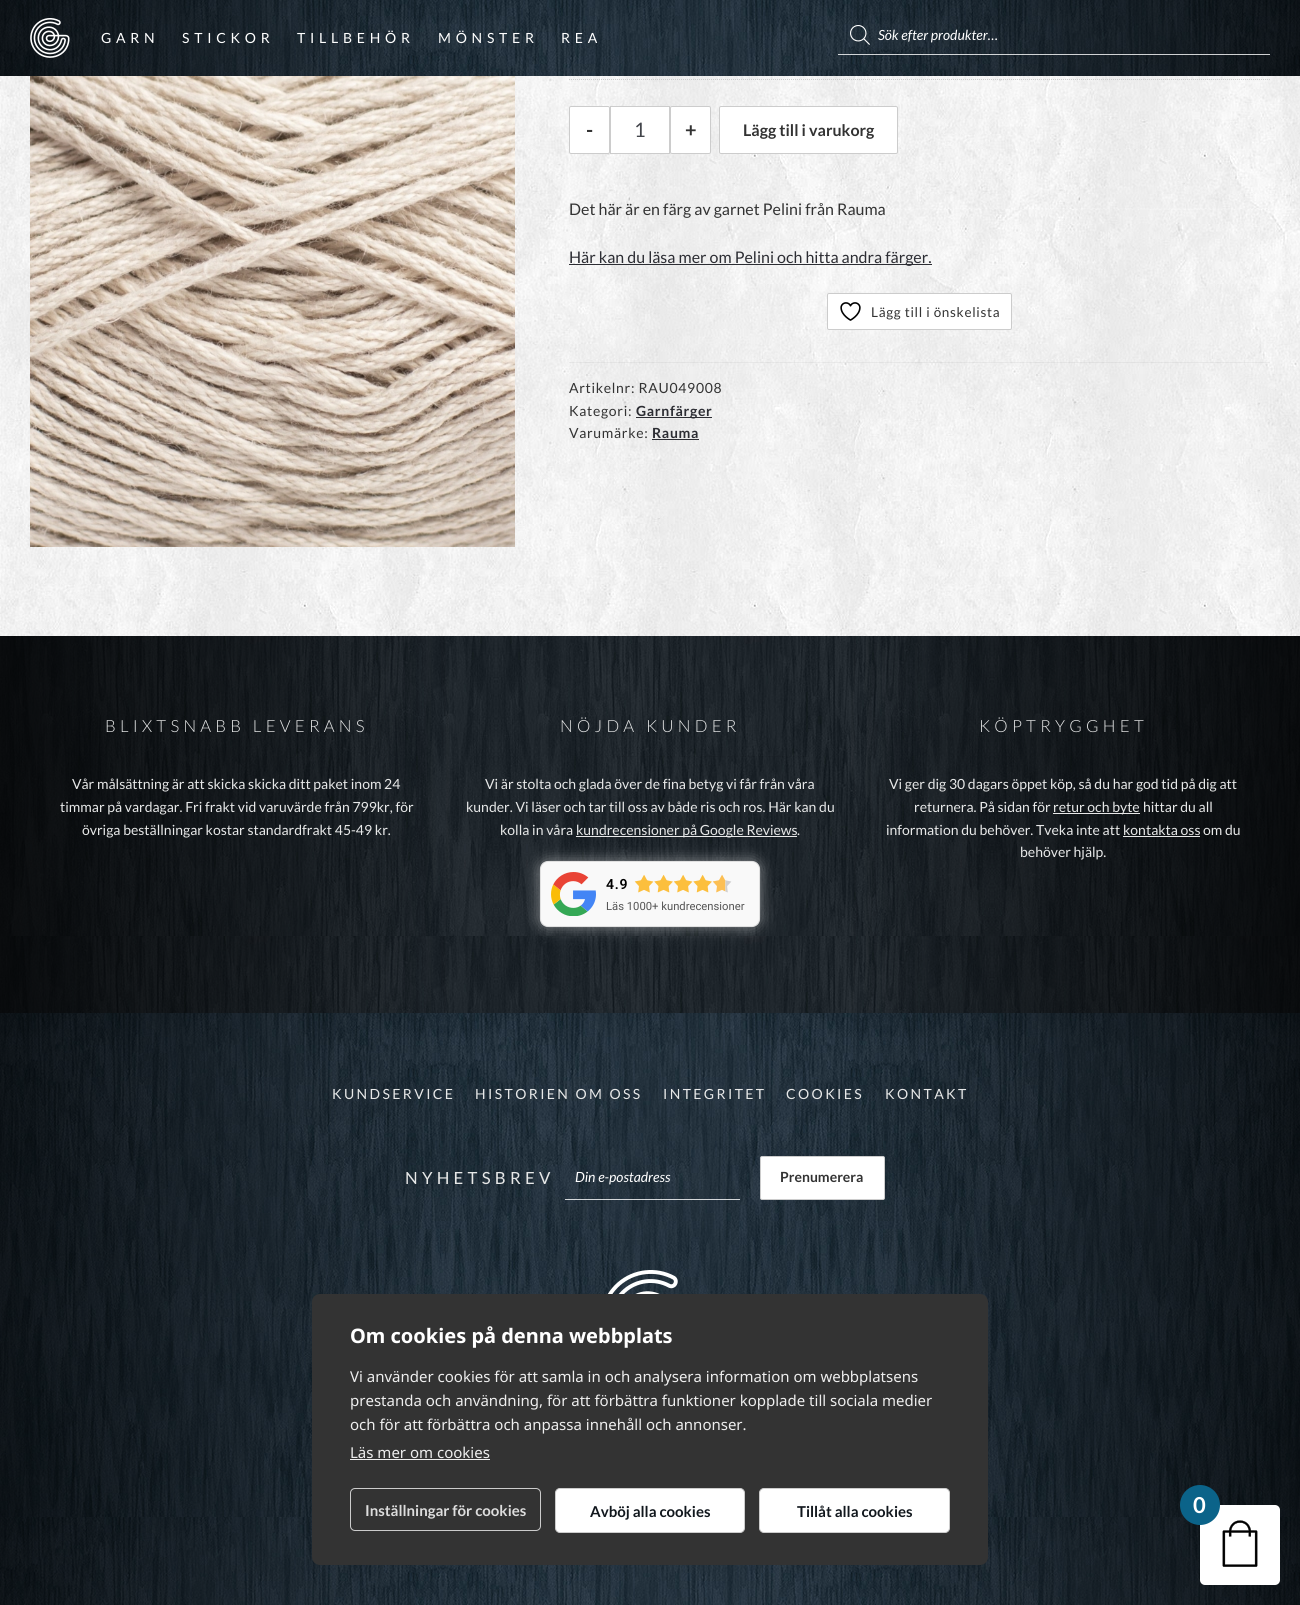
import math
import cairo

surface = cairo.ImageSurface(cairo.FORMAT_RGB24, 1300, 1605)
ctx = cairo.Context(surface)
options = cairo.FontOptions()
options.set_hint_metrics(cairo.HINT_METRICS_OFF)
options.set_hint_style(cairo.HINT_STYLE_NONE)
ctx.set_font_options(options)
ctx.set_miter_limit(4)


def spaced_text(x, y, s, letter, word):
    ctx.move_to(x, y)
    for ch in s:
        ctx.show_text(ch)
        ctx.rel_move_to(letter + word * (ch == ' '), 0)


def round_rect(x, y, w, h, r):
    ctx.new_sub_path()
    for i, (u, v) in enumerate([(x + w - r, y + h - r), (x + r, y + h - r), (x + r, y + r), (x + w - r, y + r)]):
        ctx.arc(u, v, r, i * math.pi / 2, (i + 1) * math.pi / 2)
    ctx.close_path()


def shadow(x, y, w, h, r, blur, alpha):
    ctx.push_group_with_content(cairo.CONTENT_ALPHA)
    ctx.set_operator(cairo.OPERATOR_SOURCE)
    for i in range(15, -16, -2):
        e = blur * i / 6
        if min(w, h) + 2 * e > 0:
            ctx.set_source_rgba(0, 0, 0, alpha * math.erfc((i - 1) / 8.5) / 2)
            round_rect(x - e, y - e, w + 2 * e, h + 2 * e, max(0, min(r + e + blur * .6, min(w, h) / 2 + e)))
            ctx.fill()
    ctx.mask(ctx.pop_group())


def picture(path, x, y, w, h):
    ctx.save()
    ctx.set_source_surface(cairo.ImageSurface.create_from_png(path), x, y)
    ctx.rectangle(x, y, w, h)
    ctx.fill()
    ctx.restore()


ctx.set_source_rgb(1, 1, 1)
ctx.paint()
picture("img1.png", 0, 76, 1300, 560)
picture("img2.png", 0, 0, 1300, 76)
picture("img3.png", 30, 18, 40, 40)
ctx.select_font_face("Lato")
ctx.set_font_size(14)
ctx.set_source_rgb(1, 1, 1)
spaced_text(101, 43, "GARN", 4.75, 0)
spaced_text(182, 43, "STICKOR", 4.75, 0)
spaced_text(297, 43, "TILLBEHÖR", 4.75, 0)
spaced_text(438, 43, "MÖNSTER", 4.75, 0)
spaced_text(561, 43, "REA", 4.75, 0)
picture("img4.png", 850, 25, 20, 20)
ctx.set_source_rgba(1, 1, 1, 0.8)
ctx.rectangle(838, 54, 432, 1)
ctx.fill()
ctx.select_font_face("Lato", cairo.FONT_SLANT_ITALIC)
ctx.set_source_rgb(1, 1, 1)
ctx.move_to(878, 40)
ctx.show_text("Sök efter produkter…")
picture("img5.png", 30, 76, 485, 471)
ctx.new_path()
ctx.move_to(569, 79.5)
ctx.line_to(1270, 79.5)
ctx.set_source_rgb(0.8, 0.8, 0.8)
ctx.set_line_width(1)
ctx.set_dash([1, 1])
ctx.stroke()
ctx.set_source_rgb(1, 1, 1)
round_rect(569.5, 106.5, 40, 47, 1.5)
ctx.fill_preserve()
ctx.set_source_rgb(0.8, 0.8, 0.8)
ctx.set_dash([])
ctx.stroke()
ctx.select_font_face("Lato", cairo.FONT_SLANT_NORMAL, cairo.FONT_WEIGHT_BOLD)
ctx.set_font_size(20)
ctx.set_source_rgb(0.2, 0.2, 0.2)
ctx.move_to(586, 137)
ctx.show_text("-")
ctx.set_source_rgb(1, 1, 1)
ctx.rectangle(610.5, 106.5, 59, 47)
ctx.fill_preserve()
ctx.set_source_rgb(0.8, 0.8, 0.8)
ctx.stroke()
ctx.select_font_face("Lato")
ctx.set_source_rgb(0.263, 0.271, 0.294)
ctx.move_to(634, 137)
ctx.show_text("1")
ctx.set_source_rgb(1, 1, 1)
round_rect(670.5, 106.5, 40, 47, 1.5)
ctx.fill_preserve()
ctx.set_source_rgb(0.8, 0.8, 0.8)
ctx.stroke()
ctx.select_font_face("Lato", cairo.FONT_SLANT_NORMAL, cairo.FONT_WEIGHT_BOLD)
ctx.set_source_rgb(0.2, 0.2, 0.2)
ctx.move_to(685, 137)
ctx.show_text("+")
ctx.set_source_rgb(1, 1, 1)
round_rect(719.5, 106.5, 178, 47, 1.5)
ctx.fill_preserve()
ctx.set_source_rgb(0.8, 0.8, 0.8)
ctx.stroke()
ctx.set_font_size(16)
ctx.set_source_rgb(0.2, 0.2, 0.2)
ctx.move_to(743, 136)
ctx.show_text("Lägg till i varukorg")
ctx.select_font_face("Lato")
ctx.move_to(569, 215)
ctx.show_text("Det här är en färg av garnet Pelini från Rauma")
ctx.set_source_rgb(0.173, 0.176, 0.2)
ctx.rectangle(569, 264, 363, 1)
ctx.fill()
ctx.move_to(569, 263)
ctx.show_text("Här kan du läsa mer om Pelini och hitta andra färger.")
ctx.set_source_rgb(1, 1, 1)
round_rect(827.5, 293.5, 184, 36, 1.5)
ctx.fill_preserve()
ctx.set_source_rgb(0.8, 0.8, 0.8)
ctx.stroke()
picture("img6.png", 840, 302, 21, 19)
ctx.set_font_size(13.5)
ctx.set_source_rgb(0.2, 0.2, 0.2)
spaced_text(871, 317, "Lägg till i önskelista", 0.7, 0)
ctx.set_source_rgba(0, 0, 0, 0.05)
ctx.rectangle(569, 362, 701, 1)
ctx.fill()
ctx.set_font_size(14)
ctx.set_source_rgb(0.2, 0.2, 0.2)
spaced_text(569, 393, "Artikelnr: RAU049008", 0.7, 0)
spaced_text(569, 416, "Kategori:", 0.7, 0)
ctx.set_source_rgb(0.173, 0.176, 0.2)
ctx.rectangle(636, 417, 76, 1)
ctx.fill()
ctx.select_font_face("Lato", cairo.FONT_SLANT_NORMAL, cairo.FONT_WEIGHT_BOLD)
spaced_text(636, 416, "Garnfärger", 0.7, 0)
ctx.select_font_face("Lato")
ctx.set_source_rgb(0.2, 0.2, 0.2)
spaced_text(569, 438, "Varumärke:", 0.7, 0)
ctx.select_font_face("Lato", cairo.FONT_SLANT_NORMAL, cairo.FONT_WEIGHT_BOLD)
ctx.set_source_rgb(0.173, 0.176, 0.2)
spaced_text(652, 438, "Rauma", 0.7, 0)
ctx.rectangle(652, 439, 47, 1)
ctx.fill()
picture("img7.png", 0, 636, 1300, 377)
ctx.select_font_face("Lato Light")
ctx.set_font_size(16.75)
ctx.set_source_rgb(0.906, 0.91, 0.91)
spaced_text(105, 732, "BLIXTSNABB LEVERANS", 4.25, 0)
ctx.select_font_face("Lato")
ctx.set_font_size(14)
ctx.move_to(72, 789)
ctx.show_text("Vår målsättning är att skicka skicka ditt paket inom 24")
ctx.move_to(60, 812)
ctx.show_text("timmar på vardagar. Fri frakt vid varuvärde från 799kr, för")
ctx.move_to(82, 835)
ctx.show_text("övriga beställningar kostar standardfrakt 45-49 kr.")
ctx.set_source_rgba(0, 0, 0, 0.05)
ctx.rectangle(615, 756, 196, 1)
ctx.fill()
ctx.select_font_face("Lato Light")
ctx.set_font_size(16.75)
ctx.set_source_rgb(0.906, 0.91, 0.91)
spaced_text(560, 732, "NÖJDA KUNDER", 4.25, 0)
ctx.select_font_face("Lato")
ctx.set_font_size(14)
ctx.move_to(485, 789)
ctx.show_text("Vi är stolta och glada över de fina betyg vi får från våra")
ctx.move_to(466, 812)
ctx.show_text("kunder. Vi läser och tar till oss av både ris och ros. Här kan du")
ctx.move_to(500, 835)
ctx.show_text("kolla in våra")
ctx.set_source_rgba(1, 1, 1, 0.9)
ctx.rectangle(576, 836, 221, 1)
ctx.fill()
ctx.set_source_rgb(1, 1, 1)
shadow(540, 861, 220, 66, 8, 7.5, 0.5)
ctx.set_source_rgb(0.906, 0.91, 0.91)
ctx.move_to(576, 835)
ctx.show_text("kundrecensioner på Google Reviews")
ctx.move_to(797, 835)
ctx.show_text(".")
ctx.set_source_rgb(0.976, 0.976, 0.976)
round_rect(540.5, 861.5, 219, 65, 7.5)
ctx.fill_preserve()
ctx.set_source_rgb(0.878, 0.878, 0.878)
ctx.stroke()
picture("img8.png", 551, 872, 45, 44)
ctx.select_font_face("Roboto SemiBold")
ctx.set_source_rgb(0, 0, 0)
spaced_text(606, 889, "4.9", 0.7, 0)
picture("img9.png", 634, 874, 98, 19)
ctx.select_font_face("Roboto")
ctx.set_font_size(11.25)
ctx.set_source_rgb(0.333, 0.333, 0.333)
ctx.move_to(606, 910)
ctx.show_text("Läs 1000+ kundrecensioner")
ctx.select_font_face("Lato Light")
ctx.set_font_size(16.75)
ctx.set_source_rgb(0.906, 0.91, 0.91)
spaced_text(979, 732, "KÖPTRYGGHET", 4.25, 0)
ctx.select_font_face("Lato")
ctx.set_font_size(14)
ctx.move_to(889, 789)
ctx.show_text("Vi ger dig 30 dagars öppet köp, så du har god tid på dig att")
ctx.move_to(914, 812)
ctx.show_text("returnera. På sidan för")
ctx.set_source_rgba(1, 1, 1, 0.9)
ctx.rectangle(1053, 813, 87, 1)
ctx.fill()
ctx.set_source_rgb(0.906, 0.91, 0.91)
ctx.move_to(1053, 812)
ctx.show_text("retur och byte")
ctx.move_to(1143, 812)
ctx.show_text("hittar du all")
ctx.move_to(886, 835)
ctx.show_text("information du behöver. Tveka inte att")
ctx.move_to(1123, 835)
ctx.show_text("kontakta oss")
ctx.set_source_rgba(1, 1, 1, 0.9)
ctx.rectangle(1123, 836, 77, 1)
ctx.fill()
ctx.set_source_rgb(0.906, 0.91, 0.91)
ctx.move_to(1203, 835)
ctx.show_text("om du")
ctx.move_to(1020, 857)
ctx.show_text("behöver hjälp.")
picture("img10.png", 0, 1013, 1300, 592)
spaced_text(332, 1099, "KUNDSERVICE", 2.4, 0)
spaced_text(475, 1099, "HISTORIEN OM OSS", 2.4, 0)
spaced_text(663, 1099, "INTEGRITET", 2.4, 0)
spaced_text(786, 1099, "COOKIES", 2.4, 0)
spaced_text(885, 1099, "KONTAKT", 2.4, 0)
ctx.set_font_size(16.75)
spaced_text(405, 1184, "NYHETSBREV", 4.25, 0)
ctx.set_source_rgba(1, 1, 1, 0.8)
ctx.rectangle(565, 1199, 175, 1)
ctx.fill()
ctx.select_font_face("Lato", cairo.FONT_SLANT_ITALIC)
ctx.set_font_size(14)
ctx.set_source_rgb(1, 1, 1)
ctx.move_to(575, 1182)
ctx.show_text("Din e-postadress")
round_rect(760.5, 1156.5, 124, 43, 1.5)
ctx.fill_preserve()
ctx.set_source_rgb(0.8, 0.8, 0.8)
ctx.stroke()
ctx.select_font_face("Lato", cairo.FONT_SLANT_NORMAL, cairo.FONT_WEIGHT_BOLD)
ctx.set_source_rgb(0.2, 0.2, 0.2)
ctx.move_to(780, 1182)
ctx.show_text("Prenumerera")
picture("img11.png", 607, 1270, 71, 24)
round_rect(312, 1294, 676, 271, 8)
ctx.fill()
ctx.select_font_face("Noto Sans", cairo.FONT_SLANT_NORMAL, cairo.FONT_WEIGHT_BOLD)
ctx.set_font_size(20)
ctx.set_source_rgb(1, 1, 1)
ctx.move_to(350, 1343)
ctx.show_text("Om cookies på denna webbplats")
ctx.select_font_face("Noto Sans")
ctx.set_font_size(15)
ctx.set_source_rgb(0.933, 0.933, 0.933)
ctx.move_to(350, 1382)
ctx.show_text("Vi använder cookies för att samla in och analysera information om webbplatsens")
ctx.move_to(350, 1406)
ctx.show_text("prestanda och användning, för att förbättra funktioner kopplade till sociala medier")
ctx.move_to(350, 1430)
ctx.show_text("och för att förbättra och anpassa innehåll och annonser.")
ctx.move_to(350, 1458)
ctx.show_text("Läs mer om cookies")
ctx.rectangle(350, 1459, 140, 1)
ctx.fill()
round_rect(350.5, 1488.5, 190, 42, 4.5)
ctx.set_source_rgb(0.8, 0.8, 0.8)
ctx.stroke()
ctx.select_font_face("Lato", cairo.FONT_SLANT_NORMAL, cairo.FONT_WEIGHT_BOLD)
ctx.set_source_rgb(0.867, 0.867, 0.867)
ctx.move_to(365, 1516)
ctx.show_text("Inställningar för cookies")
ctx.set_source_rgb(1, 1, 1)
round_rect(555.5, 1488.5, 189, 44, 4.5)
ctx.fill_preserve()
ctx.set_source_rgb(0.8, 0.8, 0.8)
ctx.stroke()
ctx.set_source_rgb(0.067, 0.09, 0.114)
ctx.move_to(590, 1517)
ctx.show_text("Avböj alla cookies")
ctx.set_source_rgb(1, 1, 1)
round_rect(759.5, 1488.5, 190, 44, 4.5)
ctx.fill_preserve()
ctx.set_source_rgb(0.8, 0.8, 0.8)
ctx.stroke()
ctx.set_source_rgb(0.067, 0.09, 0.114)
ctx.move_to(797, 1517)
ctx.show_text("Tillåt alla cookies")
ctx.set_source_rgb(1, 1, 1)
round_rect(1200, 1505, 80, 80, 5)
ctx.fill()
ctx.set_source_rgb(0.043, 0.388, 0.537)
ctx.arc(1200, 1505, 20, 0, 2 * math.pi)
ctx.fill()
ctx.set_font_size(22)
ctx.set_source_rgb(1, 1, 1)
spaced_text(1193, 1513, "0", 0.7, 0)
picture("img12.png", 1222, 1520, 36, 47)
surface.write_to_png("page.png")
